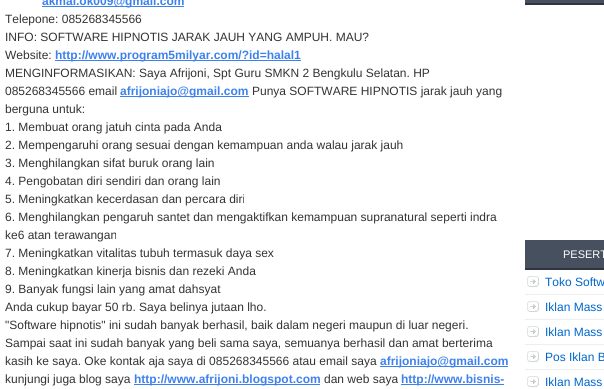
import math
import cairo

surface = cairo.ImageSurface(cairo.FORMAT_RGB24, 604, 389)
ctx = cairo.Context(surface)
options = cairo.FontOptions()
options.set_hint_metrics(cairo.HINT_METRICS_OFF)
options.set_hint_style(cairo.HINT_STYLE_NONE)
ctx.set_font_options(options)
ctx.set_miter_limit(4)


def picture(path, x, y, w, h):
    ctx.save()
    ctx.set_source_surface(cairo.ImageSurface.create_from_png(path), x, y)
    ctx.rectangle(x, y, w, h)
    ctx.fill()
    ctx.restore()


ctx.set_source_rgb(1, 1, 1)
ctx.paint()
ctx.set_source_rgb(0.239, 0.506, 0.933)
ctx.rectangle(42, 6, 142, 1)
ctx.fill()
ctx.select_font_face("Liberation Sans", cairo.FONT_SLANT_NORMAL, cairo.FONT_WEIGHT_BOLD)
ctx.set_font_size(12)
ctx.move_to(42, 5)
ctx.show_text("akmal.ok009@gmail.com")
ctx.select_font_face("Liberation Sans")
ctx.set_source_rgb(0.2, 0.2, 0.2)
ctx.move_to(5, 23)
ctx.show_text("Telepone: 085268345566")
ctx.move_to(5, 41)
ctx.show_text("INFO: SOFTWARE HIPNOTIS JARAK JAUH YANG AMPUH. MAU?")
ctx.move_to(5, 59)
ctx.show_text("Website:")
ctx.set_source_rgb(0.239, 0.506, 0.933)
ctx.rectangle(55, 60, 246, 1)
ctx.fill()
ctx.select_font_face("Liberation Sans", cairo.FONT_SLANT_NORMAL, cairo.FONT_WEIGHT_BOLD)
ctx.move_to(55, 59)
ctx.show_text("http://www.program5milyar.com/?id=halal1")
ctx.select_font_face("Liberation Sans")
ctx.set_source_rgb(0.2, 0.2, 0.2)
ctx.move_to(5, 77)
ctx.show_text("MENGINFORMASIKAN: Saya Afrijoni, Spt Guru SMKN 2 Bengkulu Selatan. HP")
ctx.move_to(5, 95)
ctx.show_text("085268345566 email")
ctx.set_source_rgb(0.239, 0.506, 0.933)
ctx.rectangle(120, 96, 129, 1)
ctx.fill()
ctx.select_font_face("Liberation Sans", cairo.FONT_SLANT_NORMAL, cairo.FONT_WEIGHT_BOLD)
ctx.move_to(120, 95)
ctx.show_text("afrijoniajo@gmail.com")
ctx.select_font_face("Liberation Sans")
ctx.set_source_rgb(0.2, 0.2, 0.2)
ctx.move_to(252, 95)
ctx.show_text("Punya SOFTWARE HIPNOTIS jarak jauh yang")
ctx.move_to(5, 113)
ctx.show_text("berguna untuk:")
ctx.move_to(5, 131)
ctx.show_text("1. Membuat orang jatuh cinta pada Anda")
ctx.move_to(5, 149)
ctx.show_text("2. Mempengaruhi orang sesuai dengan kemampuan anda walau jarak jauh")
ctx.move_to(5, 167)
ctx.show_text("3. Menghilangkan sifat buruk orang lain")
ctx.move_to(5, 185)
ctx.show_text("4. Pengobatan diri sendiri dan orang lain")
ctx.move_to(5, 203)
ctx.show_text("5. Meningkatkan kecerdasan dan percara diri")
ctx.move_to(5, 221)
ctx.show_text("6. Menghilangkan pengaruh santet dan mengaktifkan kemampuan supranatural seperti indra")
ctx.move_to(5, 239)
ctx.show_text("ke6 atan terawangan")
ctx.move_to(5, 257)
ctx.show_text("7. Meningkatkan vitalitas tubuh termasuk daya sex")
ctx.move_to(5, 275)
ctx.show_text("8. Meningkatkan kinerja bisnis dan rezeki Anda")
ctx.move_to(5, 293)
ctx.show_text("9. Banyak fungsi lain yang amat dahsyat")
ctx.move_to(5, 311)
ctx.show_text("Anda cukup bayar 50 rb. Saya belinya jutaan lho.")
ctx.move_to(5, 329)
ctx.show_text("\"Software hipnotis\" ini sudah banyak berhasil, baik dalam negeri maupun di luar negeri.")
ctx.move_to(5, 347)
ctx.show_text("Sampai saat ini sudah banyak yang beli sama saya, semuanya berhasil dan amat berterima")
ctx.move_to(5, 365)
ctx.show_text("kasih ke saya. Oke kontak aja saya di 085268345566 atau email saya")
ctx.set_source_rgb(0.239, 0.506, 0.933)
ctx.rectangle(380, 366, 128, 1)
ctx.fill()
ctx.select_font_face("Liberation Sans", cairo.FONT_SLANT_NORMAL, cairo.FONT_WEIGHT_BOLD)
ctx.move_to(380, 365)
ctx.show_text("afrijoniajo@gmail.com")
ctx.select_font_face("Liberation Sans")
ctx.set_source_rgb(0.2, 0.2, 0.2)
ctx.move_to(5, 383)
ctx.show_text("kunjungi juga blog saya")
ctx.set_source_rgb(0.239, 0.506, 0.933)
ctx.rectangle(134, 384, 186, 1)
ctx.fill()
ctx.select_font_face("Liberation Sans", cairo.FONT_SLANT_NORMAL, cairo.FONT_WEIGHT_BOLD)
ctx.move_to(134, 383)
ctx.show_text("http://www.afrijoni.blogspot.com")
ctx.select_font_face("Liberation Sans")
ctx.set_source_rgb(0.2, 0.2, 0.2)
ctx.move_to(324, 383)
ctx.show_text("dan web saya")
ctx.set_source_rgb(0.239, 0.506, 0.933)
ctx.rectangle(401, 384, 103, 1)
ctx.fill()
ctx.select_font_face("Liberation Sans", cairo.FONT_SLANT_NORMAL, cairo.FONT_WEIGHT_BOLD)
ctx.move_to(401, 383)
ctx.show_text("http://www.bisnis-")
ctx.set_source_rgb(0.278, 0.314, 0.373)
ctx.rectangle(525, 0, 79, 3)
ctx.fill()
ctx.set_source_rgb(0.184, 0.208, 0.247)
ctx.rectangle(525, 3, 79, 2)
ctx.fill()
ctx.set_source_rgb(0.278, 0.314, 0.373)
ctx.rectangle(525, 240, 79, 28)
ctx.fill()
ctx.set_source_rgb(0.184, 0.208, 0.247)
ctx.rectangle(525, 268, 79, 2)
ctx.fill()
ctx.select_font_face("Liberation Sans")
ctx.set_font_size(11)
ctx.set_source_rgb(1, 1, 1)
ctx.move_to(563, 258)
ctx.show_text("PESERT")
ctx.set_source_rgb(0.933, 0.933, 0.933)
ctx.rectangle(525, 294, 79, 1)
ctx.fill()
picture("img1.png", 527, 276, 12, 11)
ctx.set_font_size(12)
ctx.set_source_rgb(0, 0.4, 0.8)
ctx.move_to(545, 286)
ctx.show_text("Toko Softw")
ctx.set_source_rgb(0.933, 0.933, 0.933)
ctx.rectangle(525, 319, 79, 1)
ctx.fill()
picture("img1.png", 527, 301, 12, 11)
ctx.set_source_rgb(0, 0.4, 0.8)
ctx.move_to(545, 311)
ctx.show_text("Iklan Mass")
ctx.set_source_rgb(0.933, 0.933, 0.933)
ctx.rectangle(525, 344, 79, 1)
ctx.fill()
picture("img1.png", 527, 326, 12, 11)
ctx.set_source_rgb(0, 0.4, 0.8)
ctx.move_to(545, 336)
ctx.show_text("Iklan Mass")
ctx.set_source_rgb(0.933, 0.933, 0.933)
ctx.rectangle(525, 369, 79, 1)
ctx.fill()
picture("img1.png", 527, 351, 12, 11)
ctx.set_source_rgb(0, 0.4, 0.8)
ctx.move_to(545, 361)
ctx.show_text("Pos Iklan B")
picture("img1.png", 527, 376, 12, 11)
ctx.move_to(545, 386)
ctx.show_text("Iklan Mass")
surface.write_to_png("page.png")
